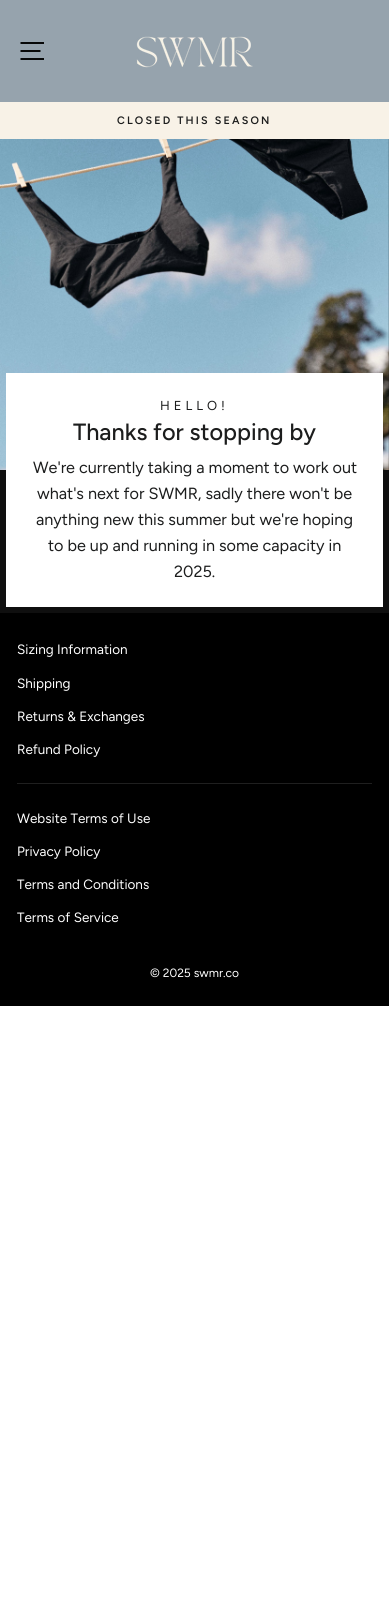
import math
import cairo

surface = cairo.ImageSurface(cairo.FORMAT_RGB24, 389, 1617)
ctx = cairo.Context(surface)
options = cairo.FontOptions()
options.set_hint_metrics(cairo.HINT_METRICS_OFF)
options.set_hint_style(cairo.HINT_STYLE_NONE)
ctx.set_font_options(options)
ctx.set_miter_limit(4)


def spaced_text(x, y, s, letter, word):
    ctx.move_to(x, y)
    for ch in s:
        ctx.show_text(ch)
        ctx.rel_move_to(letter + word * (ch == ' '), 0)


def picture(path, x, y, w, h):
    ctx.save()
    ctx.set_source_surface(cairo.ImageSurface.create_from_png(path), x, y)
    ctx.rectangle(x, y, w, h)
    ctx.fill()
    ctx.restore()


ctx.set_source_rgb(1, 1, 1)
ctx.paint()
ctx.set_source_rgb(0.588, 0.639, 0.678)
ctx.rectangle(0, 0, 389, 102)
ctx.fill()
ctx.new_path()
ctx.move_to(20.5, 43)
ctx.line_to(44, 43)
ctx.move_to(20.5, 51)
ctx.line_to(40.5, 51)
ctx.move_to(20.5, 59)
ctx.line_to(44, 59)
ctx.set_source_rgb(0, 0, 0)
ctx.set_line_width(1.9)
ctx.stroke()
picture("img1.png", 136, 36, 117, 32)
ctx.set_source_rgb(0.969, 0.949, 0.906)
ctx.rectangle(0, 102, 389, 37)
ctx.fill()
ctx.select_font_face("Figtree SemiBold")
ctx.set_font_size(10.75)
ctx.set_source_rgb(0.11, 0.114, 0.114)
spaced_text(117, 124, "CLOSED THIS SEASON", 2.2, 0)
ctx.set_source_rgb(0.059, 0.059, 0.059)
ctx.rectangle(0, 139, 389, 474)
ctx.fill()
picture("img2.png", 0, 139, 389, 331)
ctx.set_source_rgb(1, 1, 1)
ctx.rectangle(6, 373, 377, 234)
ctx.fill()
ctx.select_font_face("Figtree")
ctx.set_font_size(13)
ctx.set_source_rgb(0.11, 0.114, 0.114)
spaced_text(160, 410, "HELLO!", 4, 0)
ctx.select_font_face("Figtree Medium")
ctx.set_font_size(23.5)
ctx.move_to(73, 440)
ctx.show_text("Thanks for stopping by")
ctx.select_font_face("Figtree")
ctx.set_font_size(16.2)
ctx.move_to(33, 473)
ctx.show_text("We're currently taking a moment to work out")
ctx.move_to(37, 499)
ctx.show_text("what's next for SWMR, sadly there won't be")
ctx.move_to(36, 525)
ctx.show_text("anything new this summer but we're hoping")
ctx.move_to(48, 551)
ctx.show_text("to be up and running in some capacity in")
ctx.move_to(174, 577)
ctx.show_text("2025.")
ctx.set_source_rgb(0, 0, 0)
ctx.rectangle(0, 613, 389, 393)
ctx.fill()
ctx.set_font_size(13.5)
ctx.set_source_rgb(1, 1, 1)
ctx.move_to(17, 654)
ctx.show_text("Sizing Information")
ctx.move_to(17, 688)
ctx.show_text("Shipping")
ctx.move_to(17, 721)
ctx.show_text("Returns & Exchanges")
ctx.move_to(17, 754)
ctx.show_text("Refund Policy")
ctx.set_source_rgb(0.122, 0.122, 0.122)
ctx.rectangle(17, 783, 355, 1)
ctx.fill()
ctx.set_source_rgb(1, 1, 1)
ctx.move_to(17, 823)
ctx.show_text("Website Terms of Use")
ctx.move_to(17, 856)
ctx.show_text("Privacy Policy")
ctx.move_to(17, 889)
ctx.show_text("Terms and Conditions")
ctx.move_to(17, 922)
ctx.show_text("Terms of Service")
ctx.set_font_size(12)
ctx.move_to(150, 977)
ctx.show_text("© 2025 swmr.co")
surface.write_to_png("page.png")
